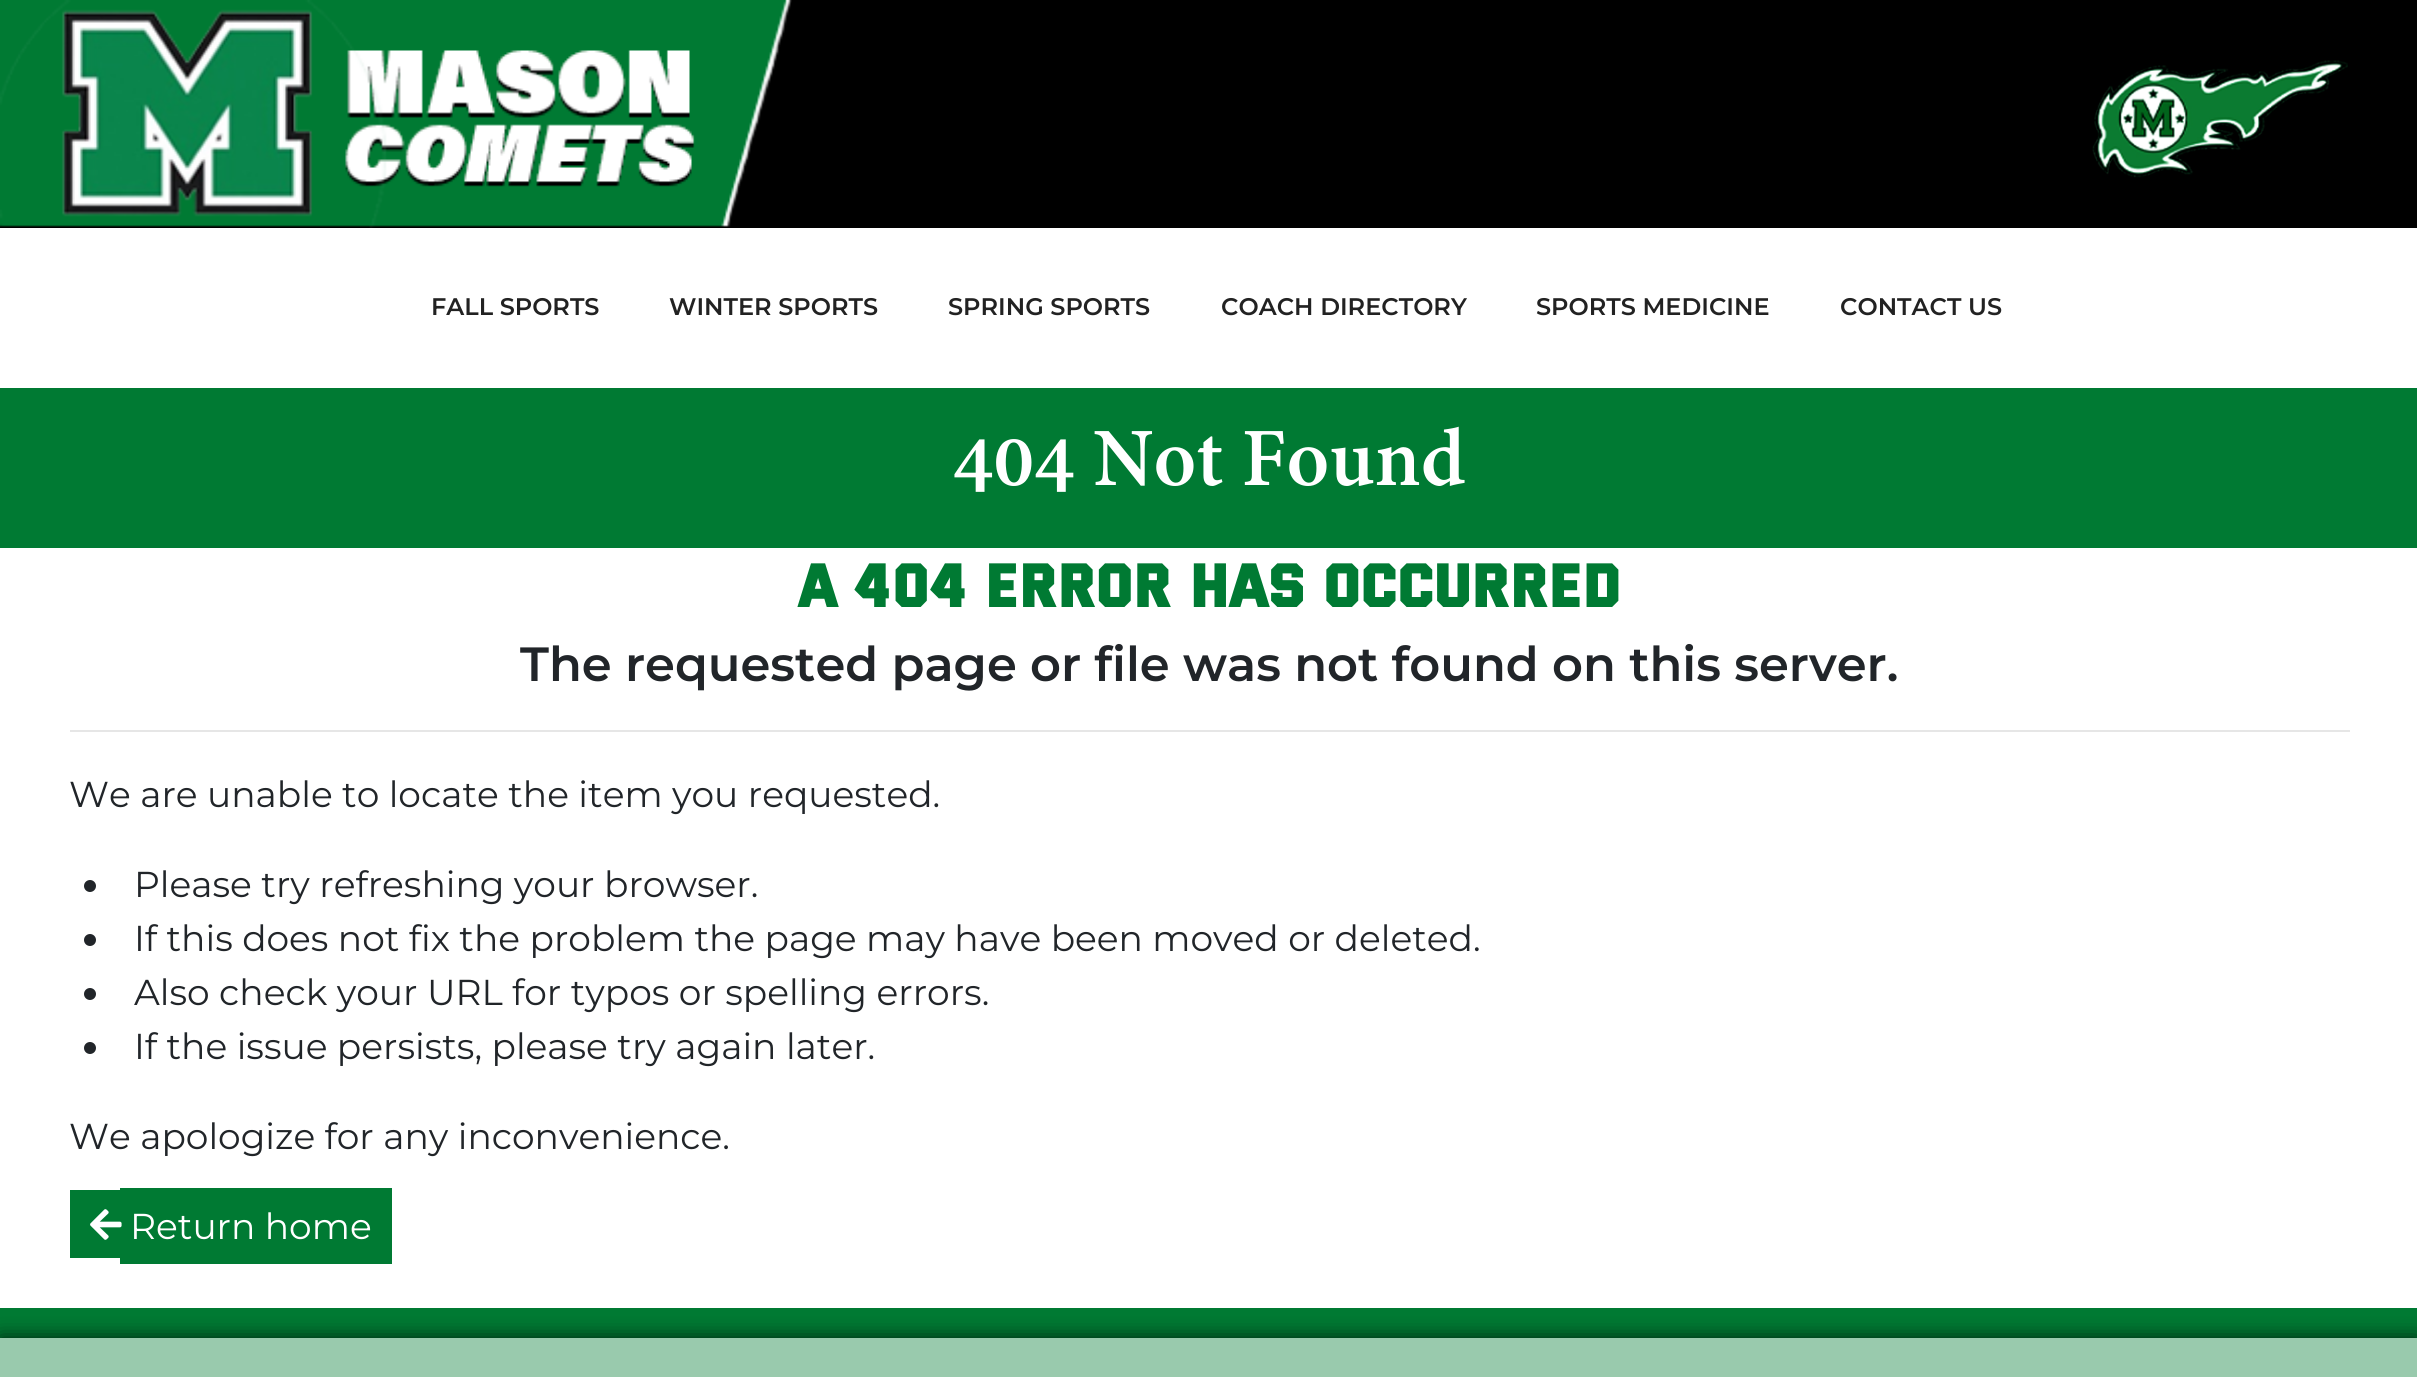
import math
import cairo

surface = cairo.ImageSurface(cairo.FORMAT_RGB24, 2417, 1377)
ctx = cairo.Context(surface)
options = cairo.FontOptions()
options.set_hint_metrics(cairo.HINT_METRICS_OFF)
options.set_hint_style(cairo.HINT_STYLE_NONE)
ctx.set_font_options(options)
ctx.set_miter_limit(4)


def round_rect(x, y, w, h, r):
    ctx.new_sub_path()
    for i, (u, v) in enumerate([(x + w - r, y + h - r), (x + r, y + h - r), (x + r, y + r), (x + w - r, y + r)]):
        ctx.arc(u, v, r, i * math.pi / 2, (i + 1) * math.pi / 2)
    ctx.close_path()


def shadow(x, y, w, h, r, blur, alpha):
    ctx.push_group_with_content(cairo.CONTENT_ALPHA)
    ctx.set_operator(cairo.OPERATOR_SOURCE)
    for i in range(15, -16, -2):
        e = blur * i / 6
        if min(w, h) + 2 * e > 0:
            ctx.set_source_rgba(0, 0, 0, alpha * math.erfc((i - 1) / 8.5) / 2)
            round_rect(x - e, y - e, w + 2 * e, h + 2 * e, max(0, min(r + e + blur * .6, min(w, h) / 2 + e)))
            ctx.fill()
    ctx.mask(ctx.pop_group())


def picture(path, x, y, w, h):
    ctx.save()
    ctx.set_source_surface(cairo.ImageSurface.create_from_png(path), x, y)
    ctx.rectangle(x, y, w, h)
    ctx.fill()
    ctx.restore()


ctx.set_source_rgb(1, 1, 1)
ctx.paint()
gradient = cairo.LinearGradient(203, -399, 2215, 627)
gradient.add_color_stop_rgba(0.25, 0, 0.478, 0.2, 1)
gradient.add_color_stop_rgba(0.25, 0, 0, 0, 1)
ctx.set_source(gradient)
ctx.rectangle(727, 0, 1690, 228)
ctx.fill()
picture("img1.png", 2092, 60, 256, 118)
picture("img2.png", 0, 0, 792, 228)
ctx.select_font_face("Montserrat SemiBold")
ctx.set_font_size(24)
ctx.set_source_rgb(0.133, 0.133, 0.133)
ctx.move_to(431, 315)
ctx.show_text("FALL SPORTS")
ctx.move_to(669, 315)
ctx.show_text("WINTER SPORTS")
ctx.move_to(948, 315)
ctx.show_text("SPRING SPORTS")
ctx.move_to(1221, 315)
ctx.show_text("COACH DIRECTORY")
ctx.move_to(1536, 315)
ctx.show_text("SPORTS MEDICINE")
ctx.move_to(1840, 315)
ctx.show_text("CONTACT US")
ctx.set_source_rgb(0, 0.478, 0.2)
ctx.rectangle(0, 388, 2417, 160)
ctx.fill()
ctx.select_font_face("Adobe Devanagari", cairo.FONT_SLANT_NORMAL, cairo.FONT_WEIGHT_BOLD)
ctx.set_font_size(90)
ctx.set_source_rgb(1, 1, 1)
ctx.move_to(953, 485)
ctx.show_text("404 Not Found")
ctx.select_font_face("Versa", cairo.FONT_SLANT_NORMAL, cairo.FONT_WEIGHT_BOLD)
ctx.set_font_size(60)
ctx.set_source_rgb(0, 0.478, 0.2)
ctx.move_to(798, 607)
ctx.show_text("A 404 Error Has Occurred")
ctx.select_font_face("Montserrat SemiBold")
ctx.set_font_size(48)
ctx.set_source_rgb(0.129, 0.145, 0.161)
ctx.move_to(520, 681)
ctx.show_text("The requested page or file was not found on this server.")
ctx.set_source_rgb(0.902, 0.902, 0.902)
ctx.rectangle(70, 730, 2280, 2)
ctx.fill()
ctx.select_font_face("Montserrat")
ctx.set_font_size(36)
ctx.set_source_rgb(0.129, 0.145, 0.161)
ctx.move_to(69, 807)
ctx.show_text("We are unable to locate the item you requested.")
ctx.new_path()
ctx.arc(90, 886, 6, 0, 2 * math.pi)
ctx.fill()
ctx.move_to(134, 897)
ctx.show_text("Please try refreshing your browser.")
ctx.new_path()
ctx.arc(90, 940, 6, 0, 2 * math.pi)
ctx.fill()
ctx.move_to(134, 951)
ctx.show_text("If this does not fix the problem the page may have been moved or deleted.")
ctx.new_path()
ctx.arc(90, 994, 6, 0, 2 * math.pi)
ctx.fill()
ctx.move_to(134, 1005)
ctx.show_text("Also check your URL for typos or spelling errors.")
ctx.new_path()
ctx.arc(90, 1048, 6, 0, 2 * math.pi)
ctx.fill()
ctx.move_to(134, 1059)
ctx.show_text("If the issue persists, please try again later.")
ctx.move_to(69, 1149)
ctx.show_text("We apologize for any inconvenience.")
ctx.set_source_rgb(0, 0.478, 0.2)
ctx.rectangle(70, 1190, 50, 68)
ctx.fill()
ctx.rectangle(120, 1188, 272, 76)
ctx.fill()
picture("img3.png", 90, 1209, 32, 31)
ctx.set_source_rgb(1, 1, 1)
ctx.move_to(130, 1239)
ctx.show_text("Return home")
ctx.set_source_rgb(0, 0.478, 0.2)
ctx.rectangle(0, 1308, 2417, 30)
ctx.fill()
ctx.set_source_rgb(0, 0, 0)
shadow(0, 1338, 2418, 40, 0, 10, 0.75)
ctx.set_source_rgb(0.6, 0.792, 0.678)
ctx.rectangle(0, 1338, 2417, 39)
ctx.fill()
surface.write_to_png("page.png")
